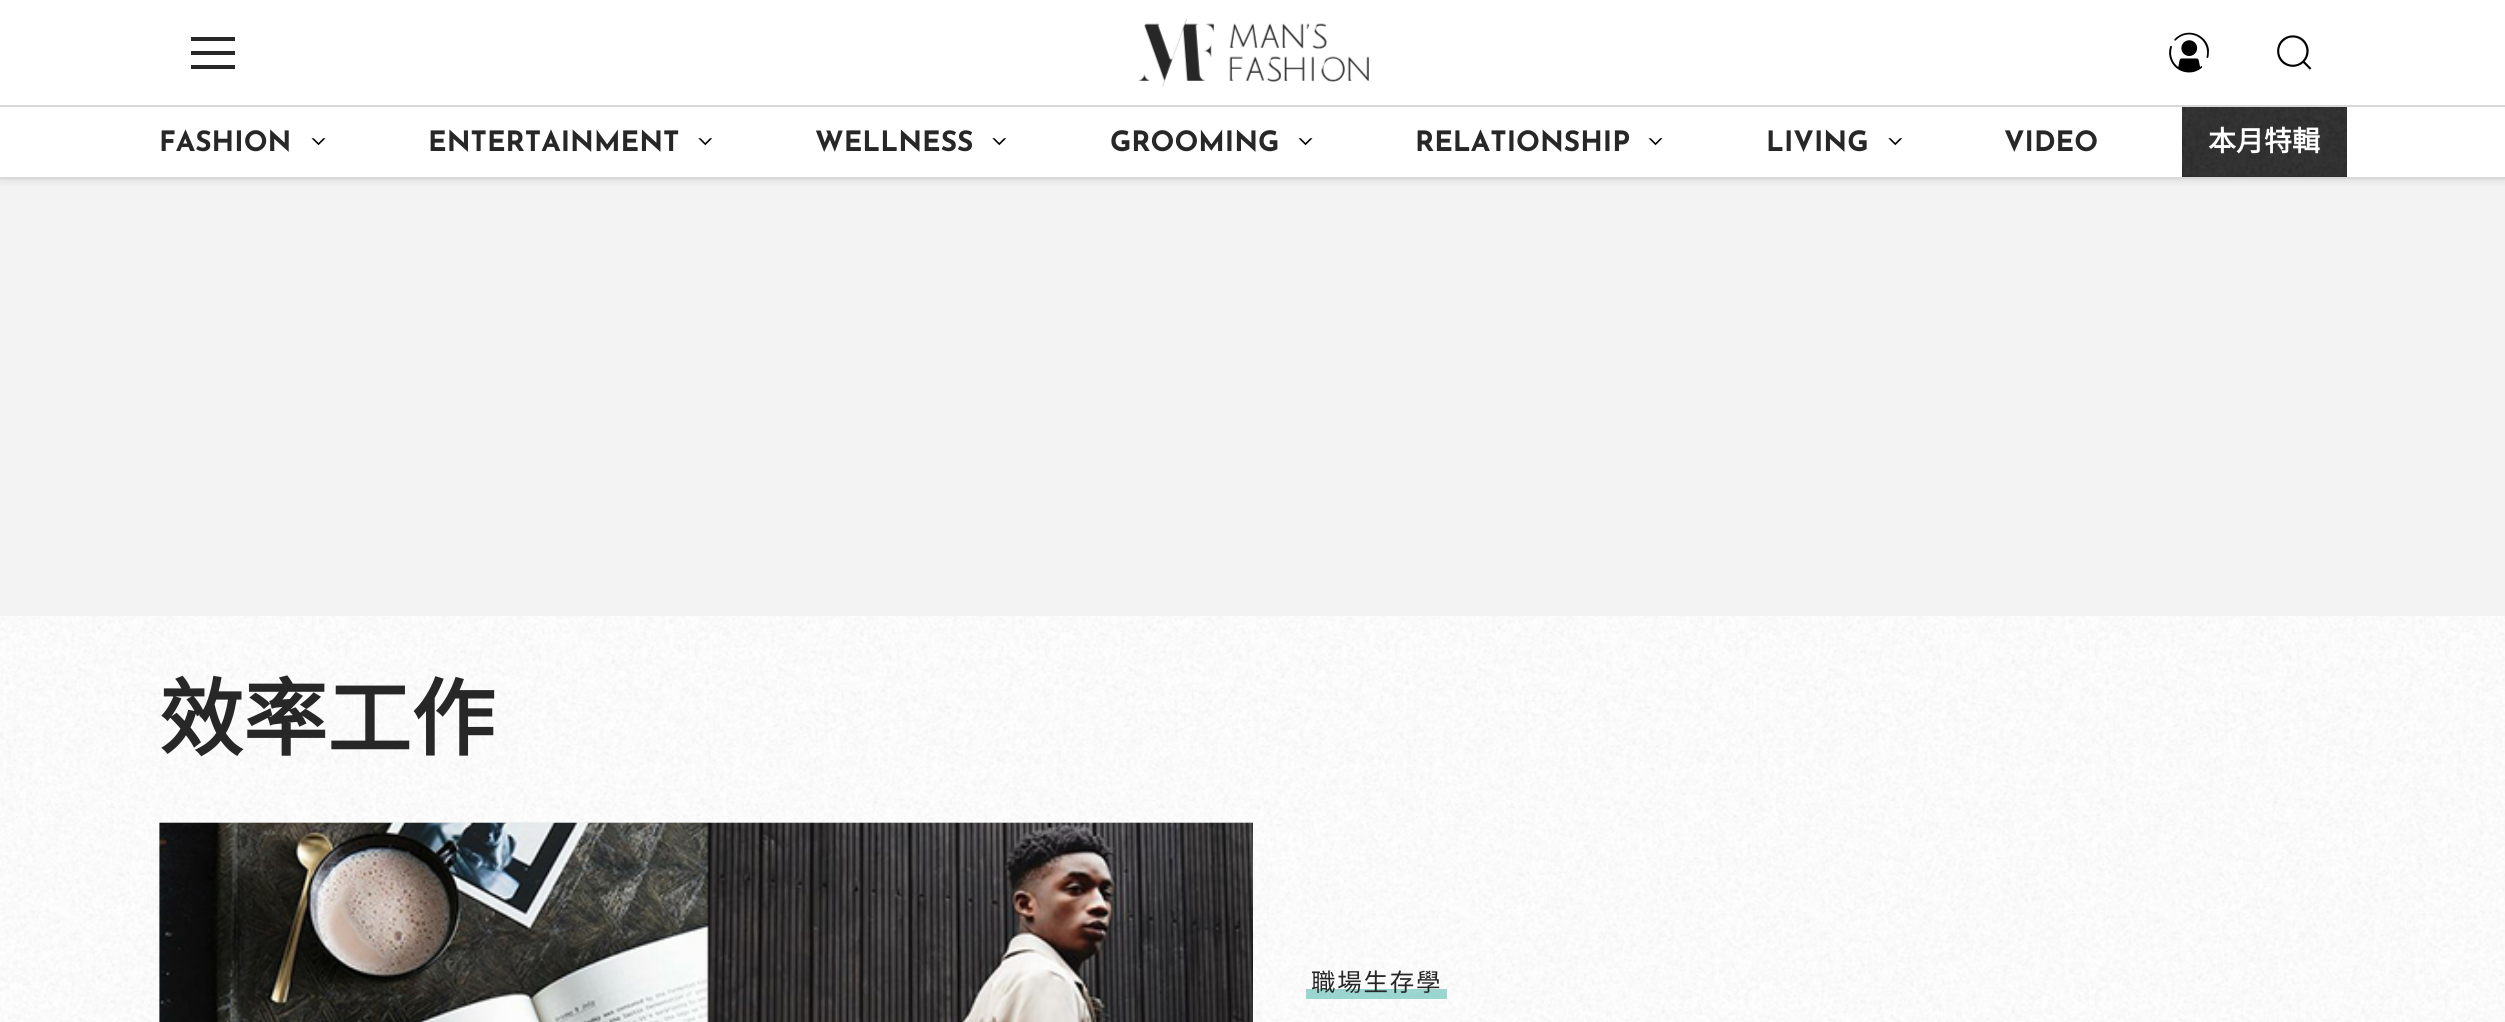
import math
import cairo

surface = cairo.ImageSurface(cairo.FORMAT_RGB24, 2505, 1022)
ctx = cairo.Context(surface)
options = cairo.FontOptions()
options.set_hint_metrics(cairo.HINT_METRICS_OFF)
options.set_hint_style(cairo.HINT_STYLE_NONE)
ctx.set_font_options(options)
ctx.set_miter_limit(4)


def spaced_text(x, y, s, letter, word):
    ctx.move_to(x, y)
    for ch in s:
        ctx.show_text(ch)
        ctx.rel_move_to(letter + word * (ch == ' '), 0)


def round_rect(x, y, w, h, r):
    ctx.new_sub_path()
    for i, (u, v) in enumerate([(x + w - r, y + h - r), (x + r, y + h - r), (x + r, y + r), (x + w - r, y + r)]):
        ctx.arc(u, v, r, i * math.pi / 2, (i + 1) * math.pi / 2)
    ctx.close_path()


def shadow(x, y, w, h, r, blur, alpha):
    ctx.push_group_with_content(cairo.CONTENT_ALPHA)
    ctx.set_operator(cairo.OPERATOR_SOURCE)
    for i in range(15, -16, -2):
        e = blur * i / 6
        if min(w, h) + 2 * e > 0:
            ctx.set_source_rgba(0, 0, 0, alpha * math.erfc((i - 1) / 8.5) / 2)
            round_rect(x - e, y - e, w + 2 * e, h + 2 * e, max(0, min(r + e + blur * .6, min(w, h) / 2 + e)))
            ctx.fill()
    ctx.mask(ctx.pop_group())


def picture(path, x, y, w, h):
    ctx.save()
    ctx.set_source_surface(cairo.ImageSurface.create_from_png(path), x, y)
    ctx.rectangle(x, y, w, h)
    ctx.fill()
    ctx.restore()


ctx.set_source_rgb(1, 1, 1)
ctx.paint()
picture("img1.png", 0, 616, 2505, 406)
ctx.set_source_rgb(0.953, 0.953, 0.953)
ctx.rectangle(0, 179, 2505, 437)
ctx.fill()
ctx.set_source_rgb(0, 0, 0)
shadow(0, 0, 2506, 179, 0, 4.5, 0.15)
ctx.set_source_rgb(1, 1, 1)
ctx.rectangle(0, 0, 2505, 177)
ctx.fill()
ctx.set_source_rgb(0.153, 0.153, 0.153)
ctx.rectangle(191, 37, 44, 4)
ctx.fill()
ctx.rectangle(191, 51, 44, 4)
ctx.fill()
ctx.rectangle(191, 65, 44, 4)
ctx.fill()
picture("img2.png", 1138, 18, 231, 69)
picture("img3.png", 2169, 32, 40, 41)
picture("img4.png", 2277, 35, 35, 35)
ctx.set_source_rgb(0.847, 0.847, 0.847)
ctx.rectangle(0, 105, 2505, 2)
ctx.fill()
ctx.rectangle(0, 177, 2505, 2)
ctx.fill()
ctx.select_font_face("Josefin Sans", cairo.FONT_SLANT_NORMAL, cairo.FONT_WEIGHT_BOLD)
ctx.set_font_size(28)
ctx.set_source_rgb(0.153, 0.153, 0.153)
ctx.move_to(159, 151)
ctx.show_text("FASHION")
picture("img5.png", 311, 138, 15, 8)
ctx.move_to(428, 151)
ctx.show_text("ENTERTAINMENT")
picture("img6.png", 698, 138, 15, 8)
ctx.move_to(815, 151)
ctx.show_text("WELLNESS")
picture("img6.png", 992, 138, 15, 8)
ctx.move_to(1110, 151)
ctx.show_text("GROOMING")
picture("img5.png", 1298, 138, 15, 8)
ctx.move_to(1415, 151)
ctx.show_text("RELATIONSHIP")
picture("img5.png", 1648, 138, 15, 8)
ctx.move_to(1766, 151)
ctx.show_text("LIVING")
picture("img6.png", 1888, 138, 15, 8)
ctx.move_to(2004, 151)
ctx.show_text("VIDEO")
ctx.rectangle(2182, 107, 165, 70)
ctx.fill()
picture("img7.png", 2182, 107, 165, 70)
ctx.select_font_face("Noto Sans CJK TC", cairo.FONT_SLANT_NORMAL, cairo.FONT_WEIGHT_BOLD)
ctx.set_source_rgb(1, 1, 1)
ctx.move_to(2208, 151)
ctx.show_text("本月特輯")
ctx.set_font_size(84)
ctx.set_source_rgb(0.153, 0.153, 0.153)
ctx.move_to(159, 749)
ctx.show_text("效率工作")
picture("img8.png", 159, 822, 1094, 200)
picture("img9.png", 159, 822, 1094, 200)
ctx.set_source_rgba(0.443, 0.776, 0.737, 0.7)
ctx.rectangle(1306, 989, 141, 10)
ctx.fill()
ctx.select_font_face("Noto Sans CJK TC")
ctx.set_font_size(24.5)
ctx.set_source_rgb(0.153, 0.153, 0.153)
spaced_text(1311, 991, "職場生存學", 1.75, 0)
surface.write_to_png("page.png")
